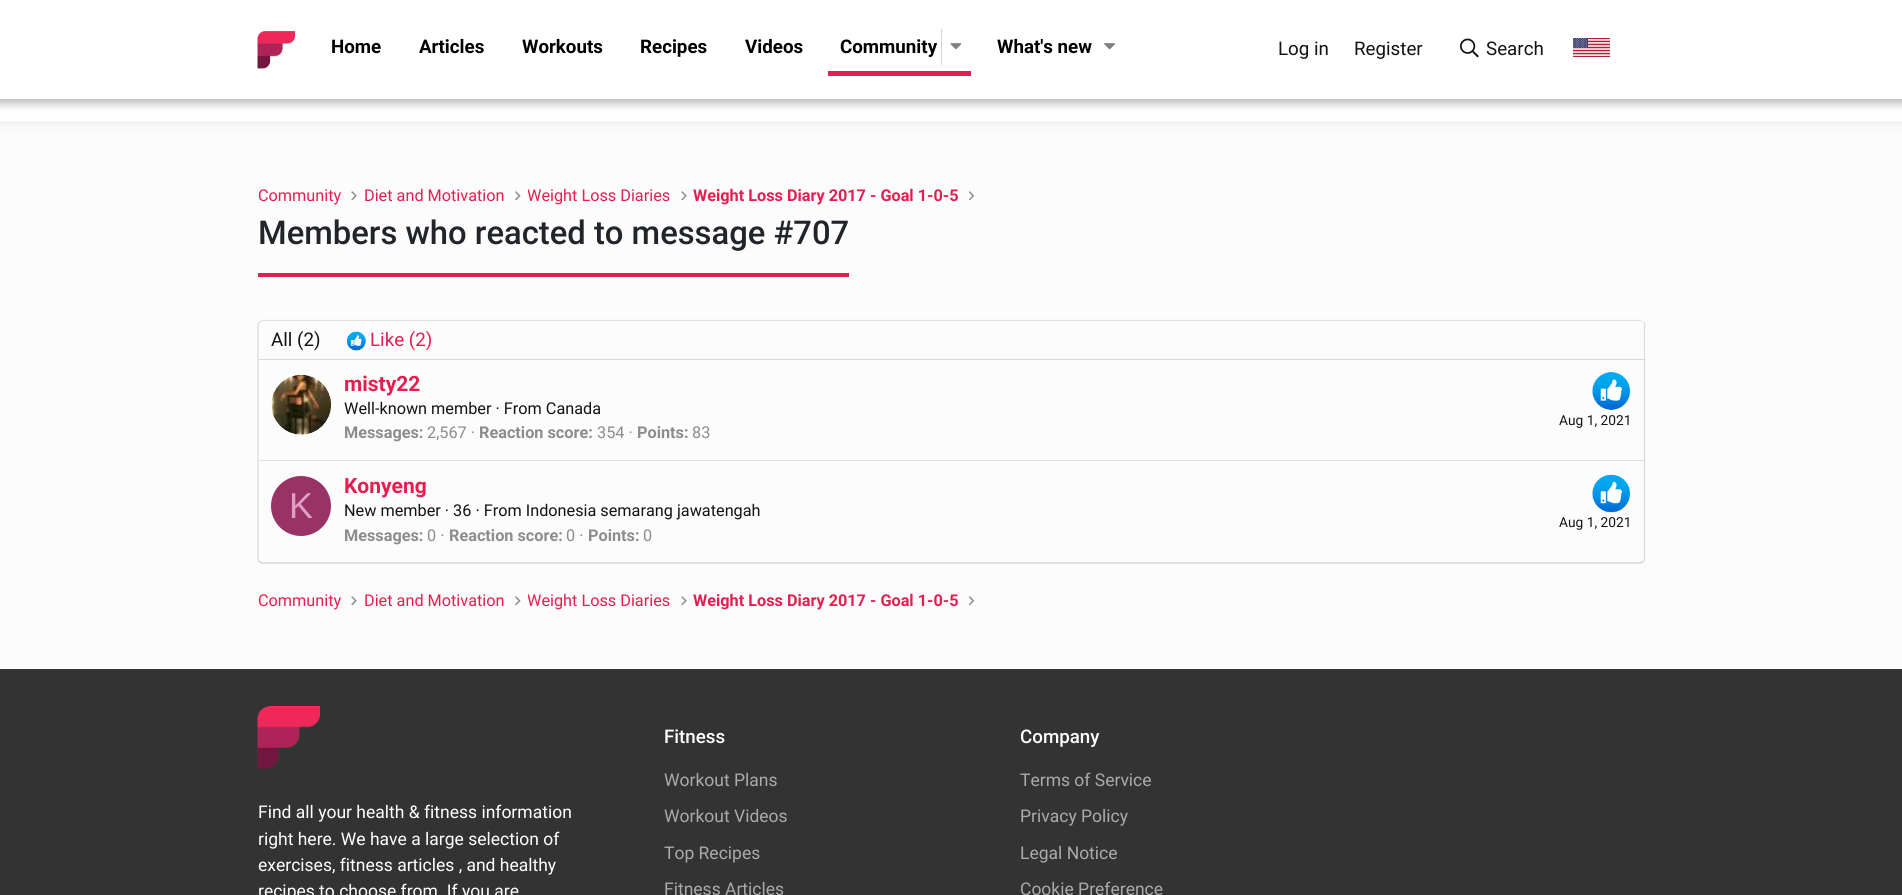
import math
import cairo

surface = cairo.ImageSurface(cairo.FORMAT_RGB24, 1902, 895)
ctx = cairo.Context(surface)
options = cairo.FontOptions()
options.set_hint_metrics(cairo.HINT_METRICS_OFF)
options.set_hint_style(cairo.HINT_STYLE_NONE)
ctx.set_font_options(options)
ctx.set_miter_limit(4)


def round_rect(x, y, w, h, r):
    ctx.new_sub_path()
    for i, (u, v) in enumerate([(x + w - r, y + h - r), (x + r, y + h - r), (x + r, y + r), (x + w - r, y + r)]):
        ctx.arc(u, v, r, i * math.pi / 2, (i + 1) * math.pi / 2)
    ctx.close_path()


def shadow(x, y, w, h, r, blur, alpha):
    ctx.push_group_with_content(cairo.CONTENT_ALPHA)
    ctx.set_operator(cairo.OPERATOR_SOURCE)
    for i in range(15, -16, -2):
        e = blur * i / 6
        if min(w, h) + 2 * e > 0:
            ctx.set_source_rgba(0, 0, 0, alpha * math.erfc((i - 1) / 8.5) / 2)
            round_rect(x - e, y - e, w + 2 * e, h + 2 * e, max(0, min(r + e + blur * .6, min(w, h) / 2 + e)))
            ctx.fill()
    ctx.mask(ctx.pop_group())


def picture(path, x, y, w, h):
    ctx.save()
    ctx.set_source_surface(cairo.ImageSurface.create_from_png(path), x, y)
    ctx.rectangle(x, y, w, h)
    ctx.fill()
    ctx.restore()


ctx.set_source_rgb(0.988, 0.988, 0.988)
ctx.paint()
ctx.set_source_rgb(0, 0, 0)
shadow(0, 49, 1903, 76, 0, 5, 0.05)
ctx.set_source_rgb(1, 1, 1)
ctx.rectangle(0, 99, 1902, 22)
ctx.fill()
ctx.set_source_rgb(0, 0, 0)
shadow(-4, -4, 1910, 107, 0, 5, 0.3)
ctx.set_source_rgb(1, 1, 1)
ctx.rectangle(0, 0, 1902, 99)
ctx.fill()
picture("img1.png", 257, 31, 38, 38)
ctx.select_font_face("Roboto", cairo.FONT_SLANT_NORMAL, cairo.FONT_WEIGHT_BOLD)
ctx.set_font_size(18.75)
ctx.set_source_rgb(0, 0, 0)
ctx.move_to(331, 53)
ctx.show_text("Home")
ctx.move_to(419, 53)
ctx.show_text("Articles")
ctx.move_to(522, 53)
ctx.show_text("Workouts")
ctx.move_to(640, 53)
ctx.show_text("Recipes")
ctx.move_to(745, 53)
ctx.show_text("Videos")
ctx.set_source_rgb(0.902, 0.118, 0.314)
ctx.rectangle(828, 71, 143, 5)
ctx.fill()
ctx.set_source_rgb(0, 0, 0)
ctx.move_to(840, 53)
ctx.show_text("Community")
ctx.set_source_rgb(0.827, 0.827, 0.827)
ctx.rectangle(941, 29, 1, 36)
ctx.fill()
picture("img2.png", 950, 43, 12, 7)
ctx.set_source_rgb(0, 0, 0)
ctx.move_to(997, 53)
ctx.show_text("What's new")
picture("img3.png", 1104, 43, 11, 7)
ctx.select_font_face("Roboto")
ctx.set_source_rgb(0.078, 0.078, 0.078)
ctx.move_to(1278, 55)
ctx.show_text("Log in")
ctx.move_to(1354, 55)
ctx.show_text("Register")
picture("img4.png", 1460, 38, 19, 20)
ctx.move_to(1486, 55)
ctx.show_text("Search")
picture("img5.png", 1573, 38, 37, 19)
ctx.set_font_size(16.25)
ctx.set_source_rgb(0.902, 0.118, 0.314)
ctx.move_to(258, 201)
ctx.show_text("Community")
picture("img6.png", 351, 191, 6, 10)
ctx.move_to(364, 201)
ctx.show_text("Diet and Motivation")
picture("img7.png", 515, 191, 6, 10)
ctx.save()
ctx.rectangle(528, 184, 142, 24)
ctx.clip()
ctx.move_to(527, 201)
ctx.show_text("Weight Loss Diaries")
ctx.restore()
picture("img6.png", 681, 191, 6, 10)
ctx.select_font_face("Roboto", cairo.FONT_SLANT_NORMAL, cairo.FONT_WEIGHT_BOLD)
ctx.move_to(693, 201)
ctx.show_text("Weight Loss Diary 2017 - Goal 1-0-5")
picture("img8.png", 968, 191, 7, 10)
ctx.rectangle(258, 273, 591, 4)
ctx.fill()
ctx.select_font_face("Roboto Medium")
ctx.set_font_size(32.8)
ctx.set_source_rgb(0.129, 0.145, 0.161)
ctx.move_to(258, 244)
ctx.show_text("Members who reacted to message #707")
ctx.new_path()
ctx.move_to(259.5, 322)
ctx.line_to(262.5, 320.5)
ctx.line_to(1640, 320.5)
ctx.line_to(1643, 322)
ctx.set_source_rgb(0.875, 0.875, 0.875)
ctx.set_line_width(1.2)
ctx.stroke()
ctx.new_path()
ctx.move_to(1643, 322)
ctx.curve_to(1644, 322.5, 1644.5, 324, 1644.5, 325)
ctx.line_to(1644.5, 559)
ctx.curve_to(1644.5, 560, 1644, 561, 1643, 562)
ctx.set_source_rgb(0.847, 0.847, 0.847)
ctx.stroke()
ctx.new_path()
ctx.move_to(1643, 562)
ctx.line_to(1640, 563)
ctx.line_to(262.5, 563)
ctx.line_to(259.5, 562)
ctx.set_source_rgb(0.796, 0.796, 0.796)
ctx.stroke()
ctx.new_path()
ctx.move_to(259.5, 562)
ctx.curve_to(258.5, 561, 258, 560, 258, 559)
ctx.line_to(258, 325)
ctx.curve_to(258, 324, 258.5, 322.5, 259.5, 322)
ctx.set_source_rgb(0.847, 0.847, 0.847)
ctx.stroke()
ctx.set_source_rgb(0.988, 0.988, 0.988)
ctx.new_path()
ctx.move_to(263, 321)
ctx.line_to(1640, 321)
ctx.curve_to(1642, 321, 1644, 323, 1644, 325)
ctx.line_to(1644, 360)
ctx.line_to(259, 360)
ctx.line_to(259, 325)
ctx.curve_to(259, 323, 261, 321, 263, 321)
ctx.close_path()
ctx.fill()
ctx.set_source_rgb(0.847, 0.847, 0.847)
ctx.rectangle(259, 359, 1385, 1)
ctx.fill()
ctx.select_font_face("Roboto")
ctx.set_font_size(18.75)
ctx.set_source_rgb(0.078, 0.078, 0.078)
ctx.move_to(271, 346)
ctx.show_text("All (2)")
picture("img9.png", 347, 331, 19, 20)
ctx.set_source_rgb(0.902, 0.118, 0.314)
ctx.move_to(370, 346)
ctx.show_text("Like (2)")
picture("img10.png", 271, 375, 60, 60)
ctx.select_font_face("Roboto", cairo.FONT_SLANT_NORMAL, cairo.FONT_WEIGHT_BOLD)
ctx.set_font_size(21)
ctx.move_to(344, 391)
ctx.show_text("misty22")
ctx.select_font_face("Roboto")
ctx.set_font_size(16.25)
ctx.set_source_rgb(0.078, 0.078, 0.078)
ctx.move_to(344, 414)
ctx.show_text("Well-known member · From Canada")
picture("img11.png", 1592, 372, 38, 38)
ctx.set_font_size(13.75)
ctx.move_to(1559, 425)
ctx.show_text("Aug 1, 2021")
ctx.select_font_face("Roboto", cairo.FONT_SLANT_NORMAL, cairo.FONT_WEIGHT_BOLD)
ctx.set_font_size(16.25)
ctx.set_source_rgb(0.549, 0.549, 0.549)
ctx.move_to(344, 438)
ctx.show_text("Messages:")
ctx.select_font_face("Roboto")
ctx.move_to(427, 438)
ctx.show_text("2,567 ·")
ctx.select_font_face("Roboto", cairo.FONT_SLANT_NORMAL, cairo.FONT_WEIGHT_BOLD)
ctx.move_to(479, 438)
ctx.show_text("Reaction score:")
ctx.select_font_face("Roboto")
ctx.move_to(597, 438)
ctx.show_text("354 ·")
ctx.select_font_face("Roboto", cairo.FONT_SLANT_NORMAL, cairo.FONT_WEIGHT_BOLD)
ctx.move_to(637, 438)
ctx.show_text("Points:")
ctx.select_font_face("Roboto")
ctx.move_to(692, 438)
ctx.show_text("83")
ctx.set_source_rgb(0.875, 0.875, 0.875)
ctx.rectangle(259, 460, 1385, 1)
ctx.fill()
ctx.set_source_rgb(0.6, 0.2, 0.4)
ctx.arc(301, 506, 30, 0, 2 * math.pi)
ctx.fill()
ctx.select_font_face("Liberation Sans")
ctx.set_font_size(36)
ctx.set_source_rgb(0.875, 0.624, 0.749)
ctx.move_to(289, 518)
ctx.show_text("K")
ctx.select_font_face("Roboto", cairo.FONT_SLANT_NORMAL, cairo.FONT_WEIGHT_BOLD)
ctx.set_font_size(21)
ctx.set_source_rgb(0.902, 0.118, 0.314)
ctx.move_to(344, 493)
ctx.show_text("Konyeng")
ctx.select_font_face("Roboto")
ctx.set_font_size(16.25)
ctx.set_source_rgb(0.078, 0.078, 0.078)
ctx.move_to(344, 516)
ctx.show_text("New member · 36 · From Indonesia semarang jawatengah")
picture("img12.png", 1592, 474, 38, 39)
ctx.set_font_size(13.75)
ctx.move_to(1559, 527)
ctx.show_text("Aug 1, 2021")
ctx.select_font_face("Roboto", cairo.FONT_SLANT_NORMAL, cairo.FONT_WEIGHT_BOLD)
ctx.set_font_size(16.25)
ctx.set_source_rgb(0.549, 0.549, 0.549)
ctx.move_to(344, 541)
ctx.show_text("Messages:")
ctx.select_font_face("Roboto")
ctx.move_to(427, 541)
ctx.show_text("0 ·")
ctx.select_font_face("Roboto", cairo.FONT_SLANT_NORMAL, cairo.FONT_WEIGHT_BOLD)
ctx.move_to(449, 541)
ctx.show_text("Reaction score:")
ctx.select_font_face("Roboto")
ctx.move_to(566, 541)
ctx.show_text("0 ·")
ctx.select_font_face("Roboto", cairo.FONT_SLANT_NORMAL, cairo.FONT_WEIGHT_BOLD)
ctx.move_to(588, 541)
ctx.show_text("Points:")
ctx.select_font_face("Roboto")
ctx.move_to(643, 541)
ctx.show_text("0")
ctx.set_source_rgb(0.902, 0.118, 0.314)
ctx.move_to(258, 606)
ctx.show_text("Community")
picture("img6.png", 351, 596, 6, 10)
ctx.move_to(364, 606)
ctx.show_text("Diet and Motivation")
picture("img7.png", 515, 596, 6, 10)
ctx.save()
ctx.rectangle(528, 589, 142, 24)
ctx.clip()
ctx.move_to(527, 606)
ctx.show_text("Weight Loss Diaries")
ctx.restore()
picture("img6.png", 681, 596, 6, 10)
ctx.select_font_face("Roboto", cairo.FONT_SLANT_NORMAL, cairo.FONT_WEIGHT_BOLD)
ctx.move_to(693, 606)
ctx.show_text("Weight Loss Diary 2017 - Goal 1-0-5")
picture("img8.png", 968, 596, 7, 10)
ctx.set_source_rgb(0.2, 0.2, 0.2)
ctx.rectangle(0, 669, 1902, 226)
ctx.fill()
picture("img13.png", 257, 706, 63, 63)
ctx.select_font_face("Roboto")
ctx.set_font_size(17.5)
ctx.set_source_rgb(1, 1, 1)
ctx.move_to(258, 818)
ctx.show_text("Find all your health & fitness information")
ctx.move_to(258, 845)
ctx.show_text("right here. We have a large selection of")
ctx.move_to(258, 871)
ctx.show_text("exercises, fitness articles , and healthy")
ctx.move_to(258, 897)
ctx.show_text("recipes to choose from. If you are")
ctx.select_font_face("Roboto Medium")
ctx.set_font_size(18.75)
ctx.move_to(664, 743)
ctx.show_text("Fitness")
ctx.select_font_face("Roboto")
ctx.set_font_size(17.5)
ctx.set_source_rgb(0.667, 0.667, 0.667)
ctx.move_to(664, 786)
ctx.show_text("Workout Plans")
ctx.move_to(664, 822)
ctx.show_text("Workout Videos")
ctx.move_to(664, 859)
ctx.show_text("Top Recipes")
ctx.move_to(664, 895)
ctx.show_text("Fitness Articles")
ctx.select_font_face("Roboto Medium")
ctx.set_font_size(18.75)
ctx.set_source_rgb(1, 1, 1)
ctx.move_to(1020, 743)
ctx.show_text("Company")
ctx.select_font_face("Roboto")
ctx.set_font_size(17.5)
ctx.set_source_rgb(0.667, 0.667, 0.667)
ctx.move_to(1020, 786)
ctx.show_text("Terms of Service")
ctx.move_to(1020, 822)
ctx.show_text("Privacy Policy")
ctx.move_to(1020, 859)
ctx.show_text("Legal Notice")
ctx.move_to(1020, 895)
ctx.show_text("Cookie Preference")
surface.write_to_png("page.png")
